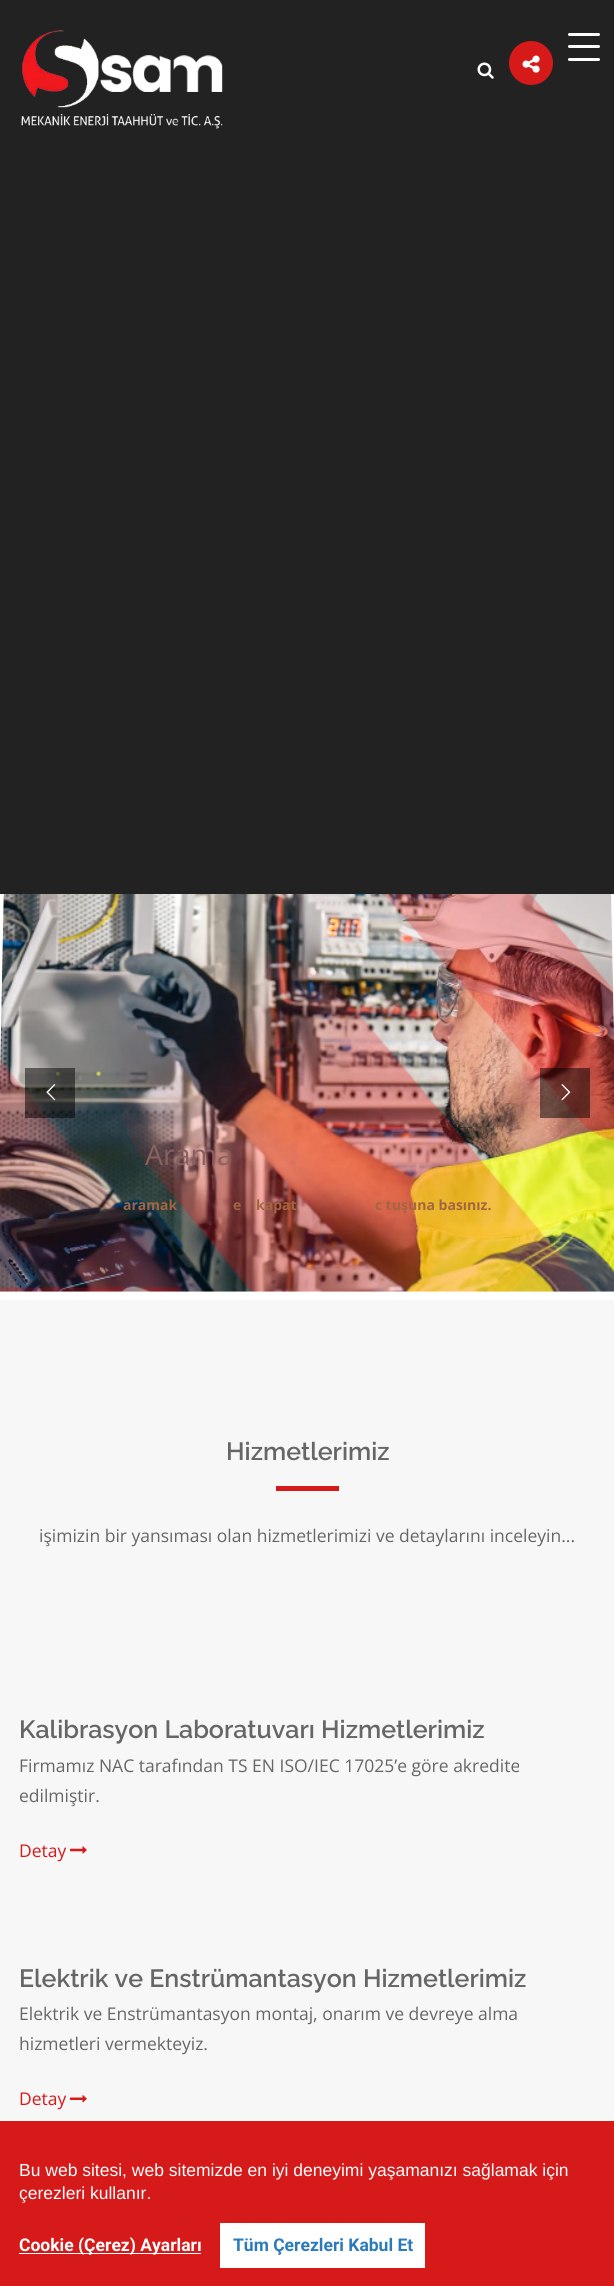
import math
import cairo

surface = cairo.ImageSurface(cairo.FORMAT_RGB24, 614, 2286)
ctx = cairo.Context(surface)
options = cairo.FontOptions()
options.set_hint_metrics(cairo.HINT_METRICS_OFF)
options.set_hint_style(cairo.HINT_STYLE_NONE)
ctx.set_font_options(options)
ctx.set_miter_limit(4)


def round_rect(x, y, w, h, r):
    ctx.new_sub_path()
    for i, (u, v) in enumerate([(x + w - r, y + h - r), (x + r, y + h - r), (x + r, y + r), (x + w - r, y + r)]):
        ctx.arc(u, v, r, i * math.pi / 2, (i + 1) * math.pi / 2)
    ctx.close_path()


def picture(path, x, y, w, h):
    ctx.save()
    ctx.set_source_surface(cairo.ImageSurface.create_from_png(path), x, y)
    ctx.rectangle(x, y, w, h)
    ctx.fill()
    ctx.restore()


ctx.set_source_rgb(1, 1, 1)
ctx.paint()
ctx.set_source_rgb(0.133, 0.133, 0.133)
ctx.rectangle(0, 0, 614, 894)
ctx.fill()
picture("img1.png", 21, 30, 202, 99)
ctx.set_source_rgb(1, 1, 1)
round_rect(568, 33, 32, 3, 1.5)
ctx.fill()
round_rect(568, 45, 32, 3, 1.5)
ctx.fill()
round_rect(568, 58, 32, 3, 1.5)
ctx.fill()
picture("img2.png", 477, 62, 17, 17)
ctx.set_source_rgb(0.839, 0.102, 0.102)
ctx.arc(531, 63, 22, 0, 2 * math.pi)
ctx.fill()
picture("img3.png", 522, 55, 18, 18)
picture("img4.png", 0, 894, 614, 398)
ctx.set_source_rgba(0, 0, 0, 0.5)
ctx.rectangle(25, 1068, 50, 50)
ctx.fill()
picture("img5.png", 46, 1084, 10, 17)
ctx.rectangle(540, 1068, 50, 50)
ctx.fill()
picture("img6.png", 561, 1084, 10, 17)
ctx.select_font_face("Open Sans")
ctx.set_font_size(28.5)
ctx.set_source_rgb(0.537, 0.38, 0.376)
ctx.move_to(145, 1165)
ctx.show_text("Arama")
ctx.select_font_face("Open Sans", cairo.FONT_SLANT_NORMAL, cairo.FONT_WEIGHT_BOLD)
ctx.set_font_size(14)
ctx.set_source_rgb(0.639, 0.396, 0.259)
ctx.move_to(123, 1210)
ctx.show_text("aramak")
ctx.move_to(233, 1210)
ctx.show_text("e")
ctx.move_to(256, 1210)
ctx.show_text("kapat")
ctx.move_to(375, 1210)
ctx.show_text("c tuşuna basınız.")
ctx.set_source_rgb(0.965, 0.965, 0.965)
ctx.rectangle(0, 1300, 614, 821)
ctx.fill()
ctx.select_font_face("Raleway SemiBold")
ctx.set_font_size(25)
ctx.set_source_rgb(0.4, 0.4, 0.4)
ctx.move_to(226, 1460)
ctx.show_text("Hizmetlerimiz")
ctx.set_source_rgb(0.839, 0.102, 0.102)
ctx.rectangle(276, 1486, 63, 5)
ctx.fill()
ctx.select_font_face("Open Sans")
ctx.set_font_size(17.5)
ctx.set_source_rgb(0.4, 0.4, 0.4)
ctx.move_to(39, 1542)
ctx.show_text("işimizin bir yansıması olan hizmetlerimizi ve detaylarını inceleyin...")
ctx.select_font_face("Raleway SemiBold")
ctx.set_font_size(25)
ctx.move_to(19, 1738)
ctx.show_text("Kalibrasyon Laboratuvarı Hizmetlerimiz")
ctx.select_font_face("Open Sans")
ctx.set_font_size(17.5)
ctx.move_to(19, 1772)
ctx.show_text("Firmamız NAC tarafından TS EN ISO/IEC 17025’e göre akredite")
ctx.move_to(19, 1802)
ctx.show_text("edilmiştir.")
ctx.set_source_rgb(0.839, 0.102, 0.102)
ctx.move_to(19, 1857)
ctx.show_text("Detay")
picture("img7.png", 70, 1846, 17, 8)
ctx.select_font_face("Raleway SemiBold")
ctx.set_font_size(25)
ctx.set_source_rgb(0.4, 0.4, 0.4)
ctx.move_to(19, 1987)
ctx.show_text("Elektrik ve Enstrümantasyon Hizmetlerimiz")
ctx.select_font_face("Open Sans")
ctx.set_font_size(17.5)
ctx.move_to(19, 2020)
ctx.show_text("Elektrik ve Enstrümantasyon montaj, onarım ve devreye alma")
ctx.move_to(19, 2050)
ctx.show_text("hizmetleri vermekteyiz.")
ctx.set_source_rgb(0.839, 0.102, 0.102)
ctx.move_to(19, 2105)
ctx.show_text("Detay")
picture("img8.png", 70, 2095, 17, 8)
ctx.rectangle(0, 2121, 614, 165)
ctx.fill()
ctx.select_font_face("Liberation Sans")
ctx.set_source_rgb(1, 1, 1)
ctx.move_to(19, 2176)
ctx.show_text("Bu web sitesi, web sitemizde en iyi deneyimi yaşamanızı sağlamak için")
ctx.move_to(19, 2199)
ctx.show_text("çerezleri kullanır.")
ctx.rectangle(19, 2253, 182, 1)
ctx.fill()
ctx.select_font_face("Roboto", cairo.FONT_SLANT_NORMAL, cairo.FONT_WEIGHT_BOLD)
ctx.move_to(19, 2251)
ctx.show_text("Cookie (Çerez) Ayarları")
ctx.rectangle(220, 2223, 205, 45)
ctx.fill()
ctx.set_source_rgb(0.169, 0.478, 0.733)
ctx.move_to(233, 2251)
ctx.show_text("Tüm Çerezleri Kabul Et")
surface.write_to_png("page.png")
